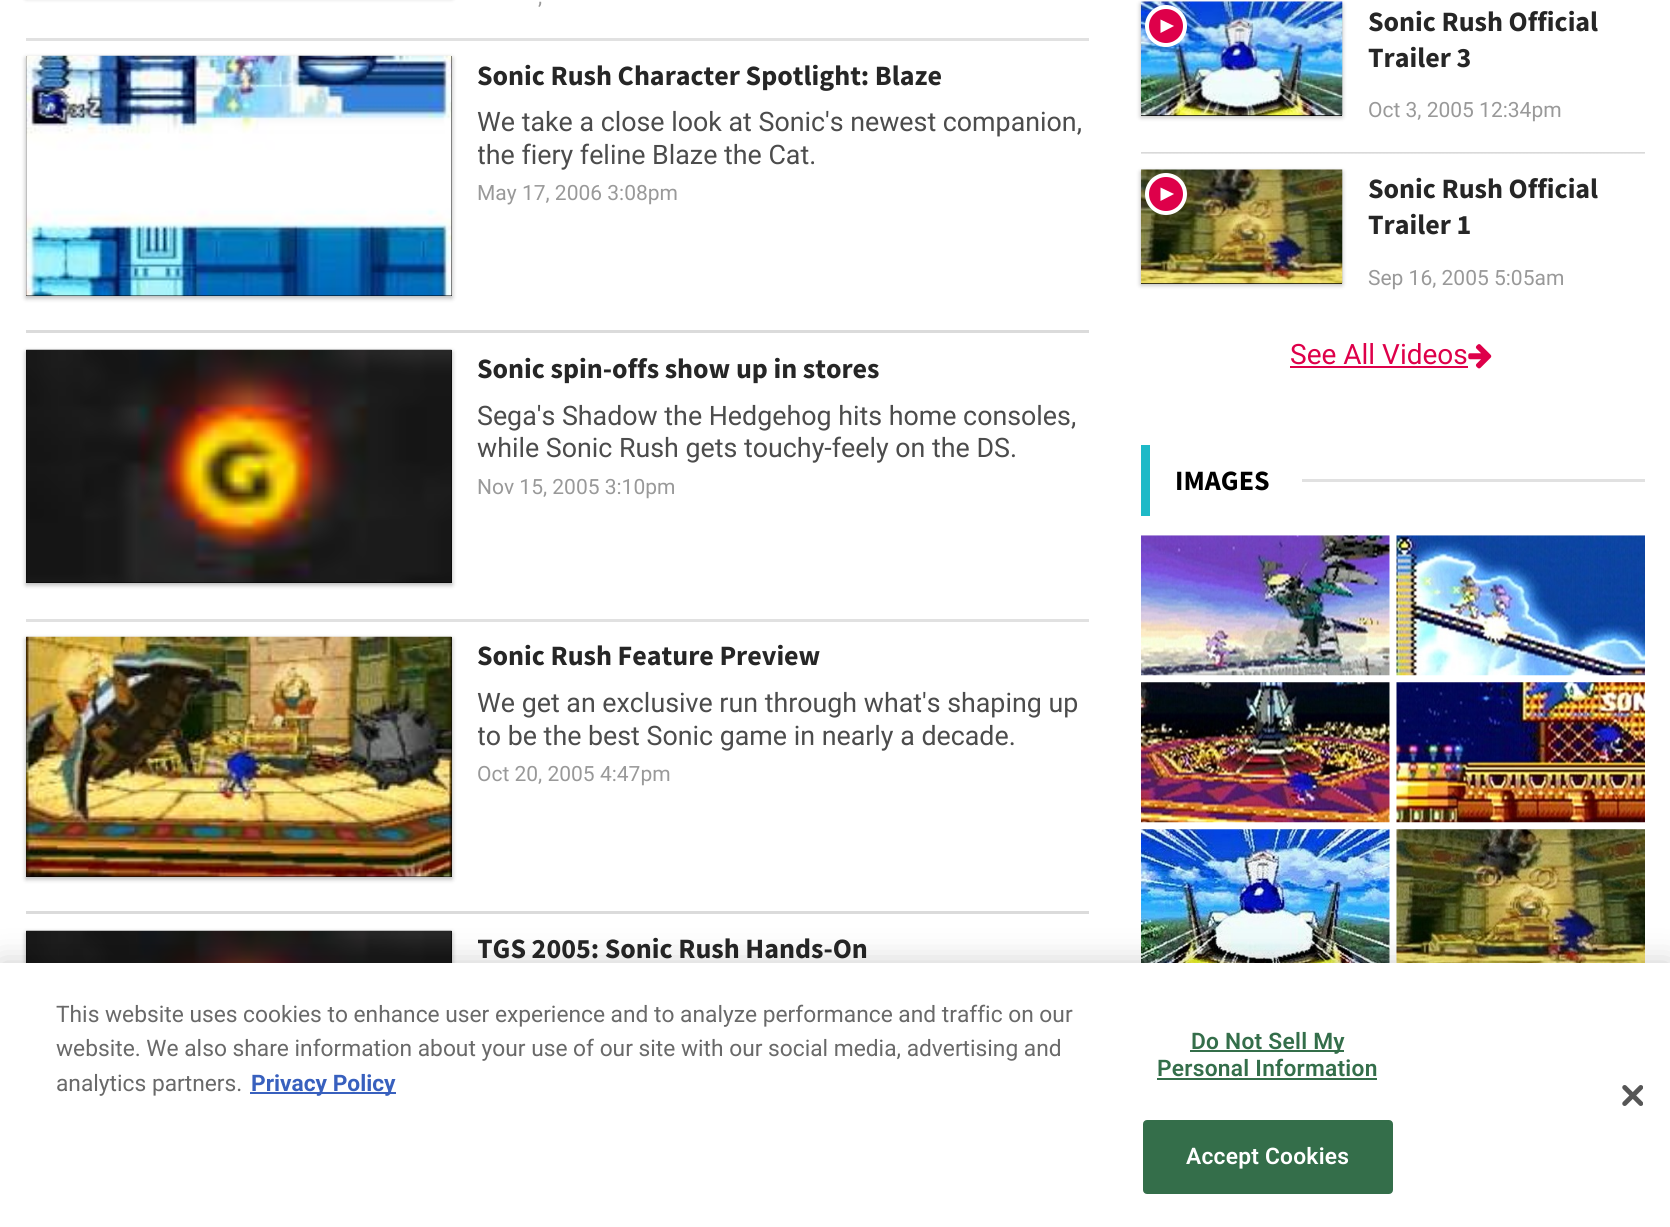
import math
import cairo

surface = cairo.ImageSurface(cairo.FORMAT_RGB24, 1670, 1227)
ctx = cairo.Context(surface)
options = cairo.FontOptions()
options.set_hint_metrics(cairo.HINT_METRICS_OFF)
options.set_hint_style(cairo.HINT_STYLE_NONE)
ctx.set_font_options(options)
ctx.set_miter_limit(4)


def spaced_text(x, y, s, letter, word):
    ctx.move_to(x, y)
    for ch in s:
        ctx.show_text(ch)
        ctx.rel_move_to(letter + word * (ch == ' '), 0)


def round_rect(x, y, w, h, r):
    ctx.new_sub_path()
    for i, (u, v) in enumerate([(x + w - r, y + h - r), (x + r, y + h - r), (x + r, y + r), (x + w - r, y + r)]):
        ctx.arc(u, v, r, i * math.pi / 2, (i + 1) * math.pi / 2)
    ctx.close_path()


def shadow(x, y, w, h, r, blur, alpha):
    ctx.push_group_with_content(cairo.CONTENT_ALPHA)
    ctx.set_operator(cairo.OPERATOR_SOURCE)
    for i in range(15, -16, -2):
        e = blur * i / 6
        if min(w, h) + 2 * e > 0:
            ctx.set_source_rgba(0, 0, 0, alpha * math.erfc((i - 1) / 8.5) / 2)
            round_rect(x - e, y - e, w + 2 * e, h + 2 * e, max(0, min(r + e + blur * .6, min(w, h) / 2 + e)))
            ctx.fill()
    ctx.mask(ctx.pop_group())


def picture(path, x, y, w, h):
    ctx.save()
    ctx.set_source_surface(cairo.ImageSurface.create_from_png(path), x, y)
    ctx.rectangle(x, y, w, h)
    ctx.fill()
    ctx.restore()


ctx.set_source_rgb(1, 1, 1)
ctx.paint()
ctx.set_source_rgb(0, 0, 0)
shadow(26, -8, 426, 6, 0, 2.5, 0.3)
ctx.select_font_face("Roboto")
ctx.set_font_size(21)
ctx.set_source_rgb(0.6, 0.6, 0.6)
ctx.move_to(538, 4)
ctx.show_text(",")
ctx.set_source_rgb(0.882, 0.882, 0.882)
ctx.rectangle(26, 38, 1063, 3)
ctx.fill()
ctx.set_source_rgb(0, 0, 0)
ctx.rectangle(26, 56, 426, 240)
ctx.fill()
picture("img1.png", 26, 55, 426, 241)
ctx.save()
ctx.set_fill_rule(cairo.FILL_RULE_EVEN_ODD)
ctx.new_path()
ctx.move_to(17, 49)
ctx.line_to(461, 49)
ctx.line_to(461, 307)
ctx.line_to(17, 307)
ctx.close_path()
ctx.move_to(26, 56)
ctx.line_to(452, 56)
ctx.line_to(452, 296)
ctx.line_to(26, 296)
ctx.close_path()
ctx.clip()
ctx.set_source_rgb(0, 0, 0)
shadow(26, 58, 426, 240, 0, 2.5, 0.3)
ctx.restore()
ctx.select_font_face("Source Sans Pro", cairo.FONT_SLANT_NORMAL, cairo.FONT_WEIGHT_BOLD)
ctx.set_font_size(28)
ctx.set_source_rgb(0.149, 0.149, 0.149)
ctx.move_to(477, 85)
ctx.show_text("Sonic Rush Character Spotlight: Blaze")
ctx.select_font_face("Roboto")
ctx.set_font_size(26.8)
ctx.set_source_rgb(0.298, 0.298, 0.298)
ctx.move_to(477, 131)
ctx.show_text("We take a close look at Sonic's newest companion,")
ctx.save()
ctx.rectangle(478, 56, 611, 159)
ctx.clip()
ctx.move_to(477, 164)
ctx.show_text("the fiery feline Blaze the Cat.")
ctx.restore()
ctx.set_font_size(21)
ctx.set_source_rgb(0.6, 0.6, 0.6)
ctx.move_to(477, 200)
ctx.show_text("May 17, 2006 3:08pm")
ctx.set_source_rgb(0.859, 0.859, 0.859)
ctx.rectangle(26, 330, 1063, 3)
ctx.fill()
ctx.set_source_rgb(0, 0, 0)
ctx.rectangle(26, 350, 426, 233)
ctx.fill()
picture("img2.png", 26, 349, 426, 234)
ctx.save()
ctx.set_fill_rule(cairo.FILL_RULE_EVEN_ODD)
ctx.new_path()
ctx.move_to(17, 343)
ctx.line_to(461, 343)
ctx.line_to(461, 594)
ctx.line_to(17, 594)
ctx.close_path()
ctx.move_to(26, 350)
ctx.line_to(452, 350)
ctx.line_to(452, 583)
ctx.line_to(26, 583)
ctx.close_path()
ctx.clip()
ctx.set_source_rgb(0, 0, 0)
shadow(26, 352, 426, 233, 0, 2.5, 0.3)
ctx.restore()
ctx.select_font_face("Source Sans Pro", cairo.FONT_SLANT_NORMAL, cairo.FONT_WEIGHT_BOLD)
ctx.set_font_size(28)
ctx.set_source_rgb(0.149, 0.149, 0.149)
ctx.move_to(477, 378)
ctx.show_text("Sonic spin-offs show up in stores")
ctx.select_font_face("Roboto")
ctx.set_font_size(26.8)
ctx.set_source_rgb(0.298, 0.298, 0.298)
ctx.move_to(477, 425)
ctx.show_text("Sega's Shadow the Hedgehog hits home consoles,")
ctx.move_to(477, 457)
ctx.show_text("while Sonic Rush gets touchy-feely on the DS.")
ctx.set_font_size(21)
ctx.set_source_rgb(0.6, 0.6, 0.6)
ctx.move_to(477, 494)
ctx.show_text("Nov 15, 2005 3:10pm")
ctx.set_source_rgb(0.882, 0.882, 0.882)
ctx.rectangle(26, 619, 1063, 3)
ctx.fill()
ctx.set_source_rgb(0, 0, 0)
ctx.rectangle(26, 637, 426, 240)
ctx.fill()
picture("img3.png", 26, 636, 426, 241)
ctx.save()
ctx.set_fill_rule(cairo.FILL_RULE_EVEN_ODD)
ctx.new_path()
ctx.move_to(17, 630)
ctx.line_to(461, 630)
ctx.line_to(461, 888)
ctx.line_to(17, 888)
ctx.close_path()
ctx.move_to(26, 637)
ctx.line_to(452, 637)
ctx.line_to(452, 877)
ctx.line_to(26, 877)
ctx.close_path()
ctx.clip()
ctx.set_source_rgb(0, 0, 0)
shadow(26, 639, 426, 240, 0, 2.5, 0.3)
ctx.restore()
ctx.select_font_face("Source Sans Pro", cairo.FONT_SLANT_NORMAL, cairo.FONT_WEIGHT_BOLD)
ctx.set_font_size(28)
ctx.set_source_rgb(0.149, 0.149, 0.149)
ctx.move_to(477, 665)
ctx.show_text("Sonic Rush Feature Preview")
ctx.select_font_face("Roboto")
ctx.set_font_size(26.8)
ctx.set_source_rgb(0.298, 0.298, 0.298)
ctx.move_to(477, 712)
ctx.show_text("We get an exclusive run through what's shaping up")
ctx.save()
ctx.rectangle(478, 637, 611, 159)
ctx.clip()
ctx.move_to(477, 745)
ctx.show_text("to be the best Sonic game in nearly a decade.")
ctx.restore()
ctx.set_font_size(21)
ctx.set_source_rgb(0.6, 0.6, 0.6)
ctx.move_to(477, 781)
ctx.show_text("Oct 20, 2005 4:47pm")
ctx.set_source_rgb(0.859, 0.859, 0.859)
ctx.rectangle(26, 911, 1063, 3)
ctx.fill()
ctx.set_source_rgb(0, 0, 0)
ctx.rectangle(26, 931, 426, 32)
ctx.fill()
picture("img4.png", 26, 930, 426, 33)
ctx.save()
ctx.set_fill_rule(cairo.FILL_RULE_EVEN_ODD)
ctx.new_path()
ctx.move_to(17, 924)
ctx.line_to(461, 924)
ctx.line_to(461, 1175)
ctx.line_to(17, 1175)
ctx.close_path()
ctx.move_to(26, 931)
ctx.line_to(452, 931)
ctx.line_to(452, 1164)
ctx.line_to(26, 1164)
ctx.close_path()
ctx.clip()
ctx.set_source_rgb(0, 0, 0)
shadow(26, 933, 426, 233, 0, 2.5, 0.3)
ctx.restore()
ctx.save()
ctx.rectangle(478, 931, 611, 159)
ctx.clip()
ctx.select_font_face("Source Sans Pro", cairo.FONT_SLANT_NORMAL, cairo.FONT_WEIGHT_BOLD)
ctx.set_font_size(28)
ctx.set_source_rgb(0.149, 0.149, 0.149)
ctx.move_to(477, 958)
ctx.show_text("TGS 2005: Sonic Rush Hands-On")
ctx.restore()
ctx.rectangle(1141, 115, 201, 1)
ctx.fill()
picture("img5.png", 1141, 1, 202, 115)
ctx.set_source_rgb(0.871, 0, 0.29)
ctx.arc(1166, 26, 19, 0, 2 * math.pi)
ctx.fill_preserve()
ctx.set_source_rgb(1, 1, 1)
ctx.set_line_width(4)
ctx.stroke()
ctx.new_path()
ctx.move_to(1160.5, 33)
ctx.line_to(1160.5, 19.5)
ctx.line_to(1174, 26)
ctx.close_path()
ctx.fill()
ctx.save()
ctx.set_fill_rule(cairo.FILL_RULE_EVEN_ODD)
ctx.new_path()
ctx.move_to(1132, 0)
ctx.line_to(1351, 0)
ctx.line_to(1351, 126)
ctx.line_to(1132, 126)
ctx.close_path()
ctx.move_to(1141, 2)
ctx.line_to(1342, 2)
ctx.line_to(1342, 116)
ctx.line_to(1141, 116)
ctx.close_path()
ctx.clip()
ctx.set_source_rgb(0, 0, 0)
shadow(1141, 4, 201, 113, 0, 2.5, 0.3)
ctx.restore()
ctx.select_font_face("Source Sans Pro", cairo.FONT_SLANT_NORMAL, cairo.FONT_WEIGHT_BOLD)
ctx.set_font_size(28)
ctx.set_source_rgb(0.149, 0.149, 0.149)
ctx.move_to(1368, 31)
ctx.show_text("Sonic Rush Official")
ctx.move_to(1368, 67)
ctx.show_text("Trailer 3")
ctx.select_font_face("Roboto")
ctx.set_font_size(21)
ctx.set_source_rgb(0.6, 0.6, 0.6)
ctx.move_to(1368, 117)
ctx.show_text("Oct 3, 2005 12:34pm")
picture("img6.png", 1141, 152, 504, 2)
ctx.set_source_rgb(0, 0, 0)
ctx.rectangle(1141, 283, 201, 1)
ctx.fill()
picture("img7.png", 1141, 169, 202, 115)
ctx.set_source_rgb(0.871, 0, 0.29)
ctx.arc(1166, 194, 19, 0, 2 * math.pi)
ctx.fill_preserve()
ctx.set_source_rgb(1, 1, 1)
ctx.stroke()
ctx.new_path()
ctx.move_to(1160.5, 201)
ctx.line_to(1160.5, 187.5)
ctx.line_to(1174, 194)
ctx.close_path()
ctx.fill()
ctx.save()
ctx.set_fill_rule(cairo.FILL_RULE_EVEN_ODD)
ctx.new_path()
ctx.move_to(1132, 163)
ctx.line_to(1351, 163)
ctx.line_to(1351, 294)
ctx.line_to(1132, 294)
ctx.close_path()
ctx.move_to(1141, 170)
ctx.line_to(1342, 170)
ctx.line_to(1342, 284)
ctx.line_to(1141, 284)
ctx.close_path()
ctx.clip()
ctx.set_source_rgb(0, 0, 0)
shadow(1141, 172, 201, 113, 0, 2.5, 0.3)
ctx.restore()
ctx.select_font_face("Source Sans Pro", cairo.FONT_SLANT_NORMAL, cairo.FONT_WEIGHT_BOLD)
ctx.set_font_size(28)
ctx.set_source_rgb(0.149, 0.149, 0.149)
ctx.move_to(1368, 198)
ctx.show_text("Sonic Rush Official")
ctx.move_to(1368, 234)
ctx.show_text("Trailer 1")
ctx.select_font_face("Roboto")
ctx.set_font_size(21)
ctx.set_source_rgb(0.6, 0.6, 0.6)
ctx.move_to(1368, 285)
ctx.show_text("Sep 16, 2005 5:05am")
ctx.set_font_size(28)
ctx.set_source_rgb(0.871, 0, 0.29)
ctx.move_to(1290, 364)
ctx.show_text("See All Videos")
ctx.rectangle(1290, 366, 178, 2)
ctx.fill()
picture("img8.png", 1468, 344, 24, 25)
ctx.set_source_rgb(0.118, 0.725, 0.78)
ctx.rectangle(1141, 445, 9, 71)
ctx.fill()
ctx.select_font_face("Source Sans Pro", cairo.FONT_SLANT_NORMAL, cairo.FONT_WEIGHT_BOLD)
ctx.set_source_rgb(0, 0, 0)
ctx.move_to(1175, 490)
ctx.show_text("IMAGES")
ctx.set_source_rgb(0.882, 0.882, 0.882)
ctx.rectangle(1302, 479, 343, 3)
ctx.fill()
picture("img9.png", 1141, 535, 249, 141)
picture("img10.png", 1396, 535, 249, 141)
picture("img11.png", 1141, 682, 249, 141)
picture("img12.png", 1396, 682, 249, 141)
picture("img13.png", 1141, 829, 249, 134)
picture("img14.png", 1396, 829, 249, 134)
ctx.set_source_rgb(0, 0, 0)
shadow(0, 963, 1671, 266, 0, 16, 0.2)
ctx.set_source_rgb(1, 1, 1)
ctx.rectangle(0, 963, 1670, 264)
ctx.fill()
ctx.select_font_face("Roboto")
ctx.set_font_size(22.75)
ctx.set_source_rgb(0.412, 0.412, 0.412)
ctx.move_to(56, 1022)
ctx.show_text("This website uses cookies to enhance user experience and to analyze performance and traffic on our")
ctx.move_to(56, 1056)
ctx.show_text("website. We also share information about your use of our site with our social media, advertising and")
ctx.move_to(56, 1091)
ctx.show_text("analytics partners.")
ctx.set_source_rgb(0.22, 0.376, 0.745)
ctx.rectangle(250, 1092, 146, 2)
ctx.fill()
ctx.select_font_face("Roboto", cairo.FONT_SLANT_NORMAL, cairo.FONT_WEIGHT_BOLD)
ctx.move_to(251, 1091)
ctx.show_text("Privacy Policy")
ctx.set_source_rgb(0.204, 0.431, 0.29)
ctx.rectangle(1190, 1050, 154, 2)
ctx.fill()
ctx.select_font_face("Roboto SemiBold")
spaced_text(1191, 1049, "Do Not Sell My", 0.25, 0)
spaced_text(1157, 1076, "Personal Information", 0.25, 0)
ctx.rectangle(1157, 1078, 220, 2)
ctx.fill()
round_rect(1144, 1121, 248, 72, 3)
ctx.fill_preserve()
ctx.set_line_width(2)
ctx.stroke()
ctx.set_source_rgb(1, 1, 1)
spaced_text(1186, 1164, "Accept Cookies", 0.25, 0)
picture("img15.png", 1622, 1085, 21, 21)
surface.write_to_png("page.png")
